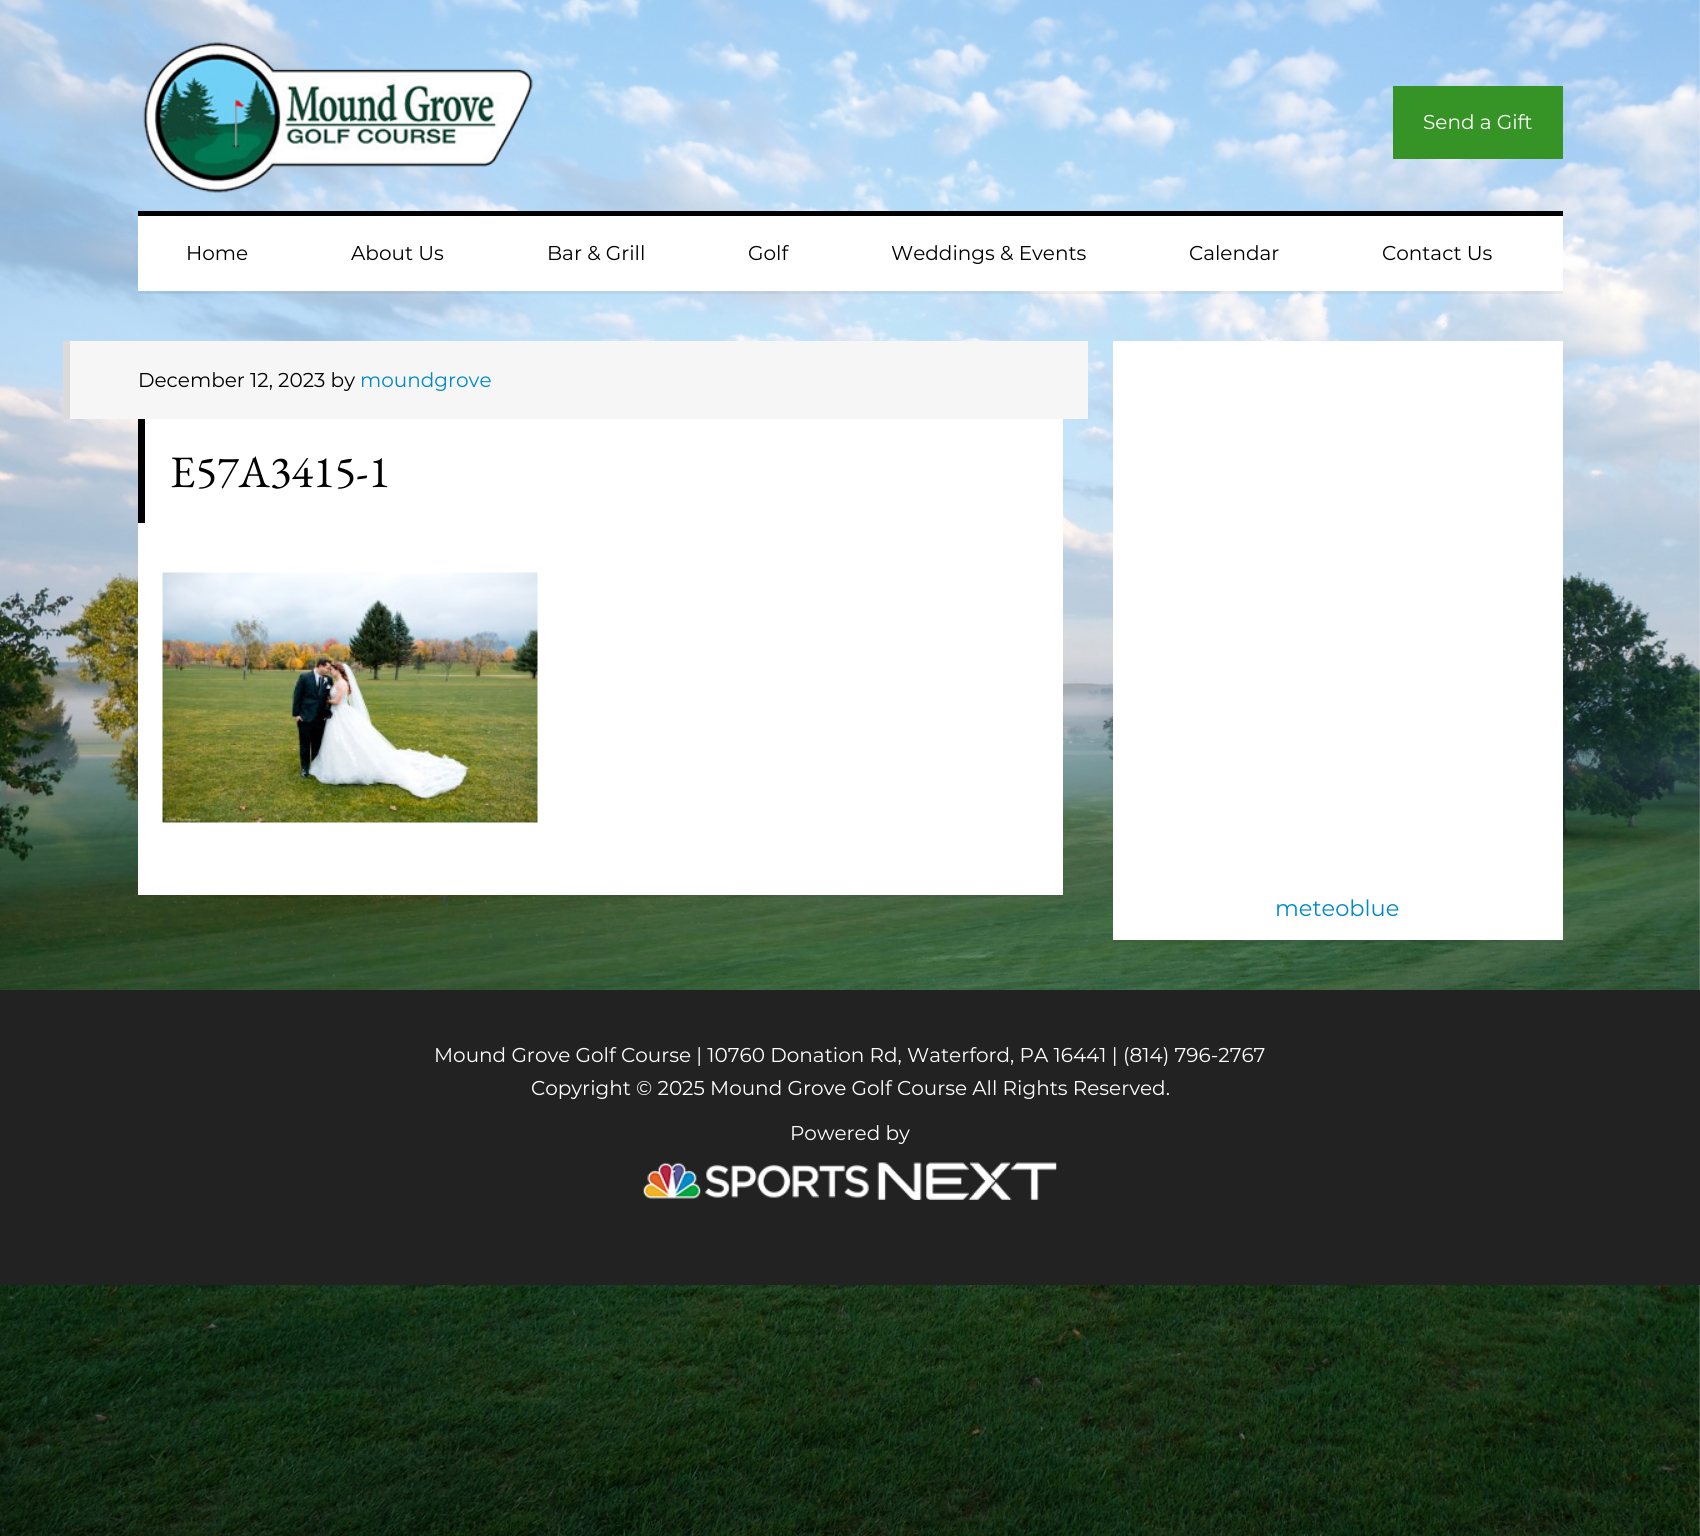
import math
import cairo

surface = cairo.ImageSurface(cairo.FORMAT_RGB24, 1700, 1536)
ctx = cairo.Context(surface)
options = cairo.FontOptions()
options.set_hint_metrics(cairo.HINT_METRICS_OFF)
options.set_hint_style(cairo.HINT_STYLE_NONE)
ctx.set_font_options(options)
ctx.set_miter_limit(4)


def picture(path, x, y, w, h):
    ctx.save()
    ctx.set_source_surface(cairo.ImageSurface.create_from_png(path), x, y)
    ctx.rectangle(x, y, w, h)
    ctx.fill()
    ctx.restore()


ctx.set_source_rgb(1, 1, 1)
ctx.paint()
picture("img1.png", 0, 0, 1700, 1536)
picture("img2.png", 143, 42, 390, 151)
ctx.set_source_rgb(0.212, 0.58, 0.149)
ctx.rectangle(1393, 86, 170, 73)
ctx.fill()
ctx.select_font_face("Montserrat Thin")
ctx.set_font_size(20)
ctx.set_source_rgb(1, 1, 1)
ctx.move_to(1423, 129)
ctx.show_text("Send a Gift")
ctx.set_source_rgba(0, 0, 0, 0.05)
ctx.new_path()
ctx.move_to(138, 291)
ctx.line_to(138, 294)
ctx.line_to(1563, 294)
ctx.line_to(1563, 214)
ctx.line_to(1562, 214)
ctx.line_to(1562, 291)
ctx.close_path()
ctx.fill()
ctx.set_source_rgb(1, 1, 1)
ctx.rectangle(138, 216, 1425, 75)
ctx.fill()
ctx.set_source_rgb(0, 0, 0)
ctx.rectangle(138, 211, 1425, 5)
ctx.fill()
ctx.move_to(186, 260)
ctx.show_text("Home")
ctx.move_to(351, 260)
ctx.show_text("About Us")
ctx.move_to(547, 260)
ctx.show_text("Bar & Grill")
ctx.move_to(748, 260)
ctx.show_text("Golf")
ctx.move_to(891, 260)
ctx.show_text("Weddings & Events")
ctx.move_to(1189, 260)
ctx.show_text("Calendar")
ctx.move_to(1382, 260)
ctx.show_text("Contact Us")
ctx.set_source_rgba(0, 0, 0, 0.05)
ctx.new_path()
ctx.move_to(138, 895)
ctx.line_to(138, 898)
ctx.line_to(1063, 898)
ctx.line_to(1063, 344)
ctx.line_to(1062, 344)
ctx.line_to(1062, 895)
ctx.close_path()
ctx.fill()
ctx.set_source_rgb(1, 1, 1)
ctx.rectangle(138, 419, 925, 476)
ctx.fill()
ctx.set_source_rgb(0.961, 0.961, 0.961)
ctx.rectangle(70, 341, 1018, 78)
ctx.fill()
ctx.set_source_rgb(0.859, 0.859, 0.859)
ctx.rectangle(63, 341, 7, 78)
ctx.fill()
ctx.set_source_rgb(0, 0, 0)
ctx.move_to(138, 387)
ctx.show_text("December 12, 2023 by")
ctx.set_source_rgb(0, 0.537, 0.776)
ctx.move_to(360, 387)
ctx.show_text("moundgrove")
ctx.set_source_rgb(0, 0, 0)
ctx.rectangle(138, 419, 7, 104)
ctx.fill()
ctx.select_font_face("EB Garamond")
ctx.set_font_size(45)
ctx.move_to(170, 487)
ctx.show_text("E57A3415-1")
picture("img3.png", 162, 572, 376, 251)
ctx.set_source_rgba(0, 0, 0, 0.05)
ctx.new_path()
ctx.move_to(1113, 940)
ctx.line_to(1113, 943)
ctx.line_to(1563, 943)
ctx.line_to(1563, 344)
ctx.line_to(1562, 344)
ctx.line_to(1562, 940)
ctx.close_path()
ctx.fill()
ctx.set_source_rgb(1, 1, 1)
ctx.rectangle(1113, 341, 450, 599)
ctx.fill()
ctx.select_font_face("Montserrat Thin")
ctx.set_font_size(22.5)
ctx.set_source_rgb(0, 0.537, 0.776)
ctx.move_to(1275, 916)
ctx.show_text("meteoblue")
ctx.set_source_rgb(0.133, 0.133, 0.133)
ctx.rectangle(0, 990, 1700, 295)
ctx.fill()
ctx.set_font_size(20)
ctx.set_source_rgb(1, 1, 1)
ctx.move_to(434, 1062)
ctx.show_text("Mound Grove Golf Course | 10760 Donation Rd, Waterford, PA 16441 | (814) 796-2767")
ctx.move_to(531, 1095)
ctx.show_text("Copyright © 2025 Mound Grove Golf Course All Rights Reserved.")
ctx.move_to(790, 1140)
ctx.show_text("Powered by")
picture("img4.png", 643, 1162, 414, 38)
surface.write_to_png("page.png")
